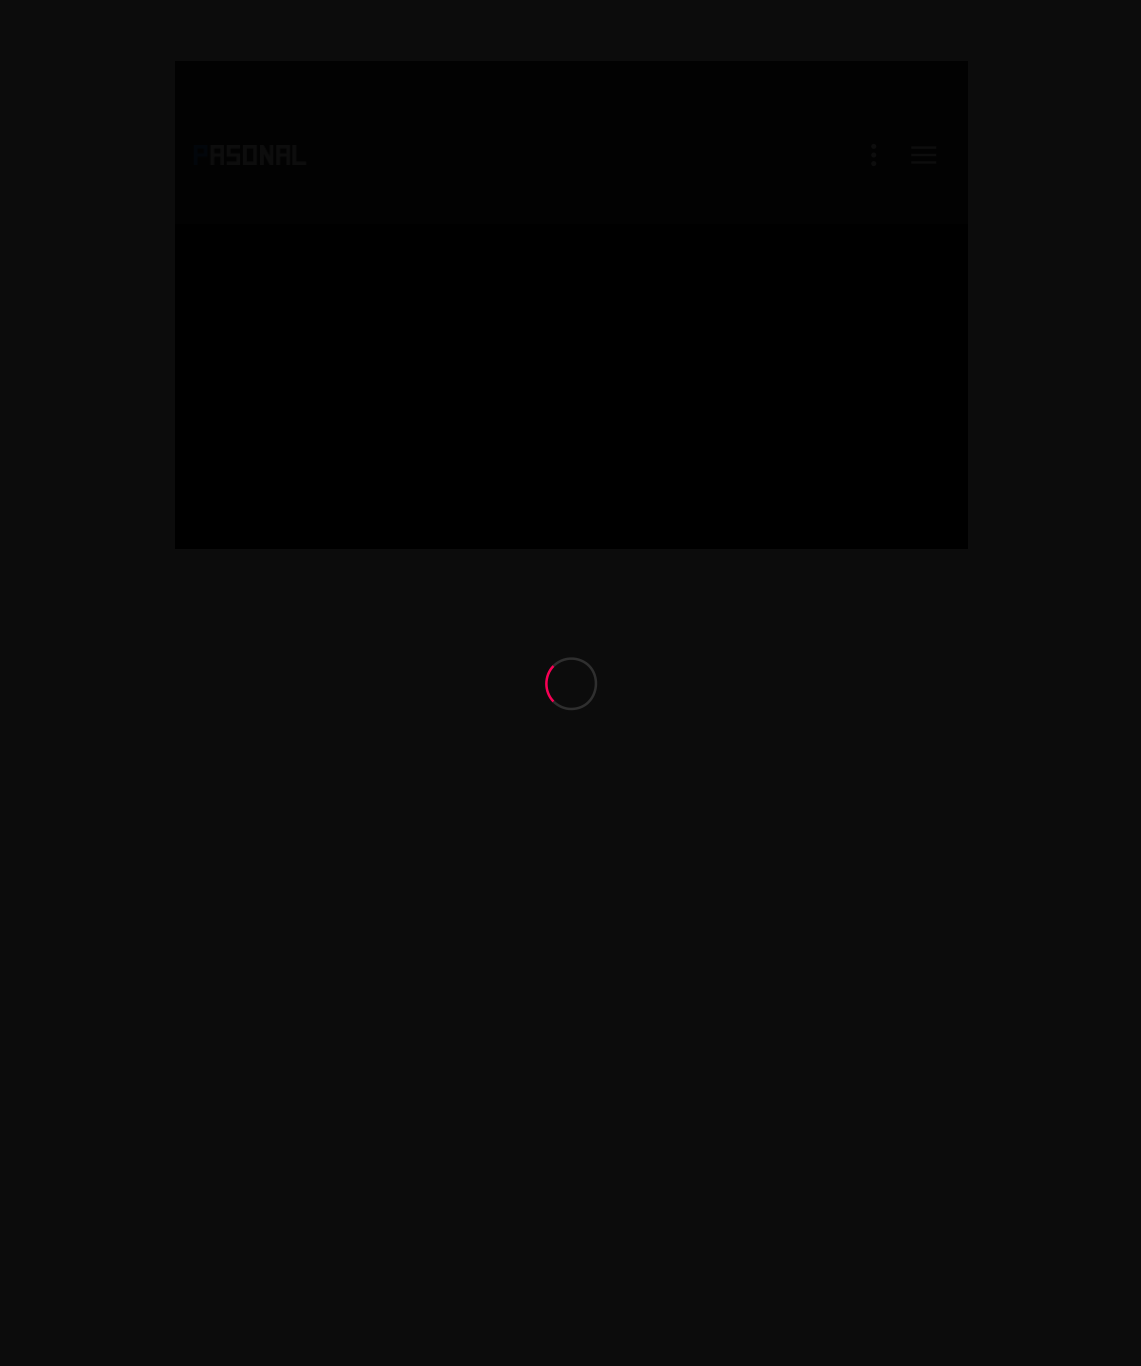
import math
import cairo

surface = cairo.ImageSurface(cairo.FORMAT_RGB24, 1141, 1366)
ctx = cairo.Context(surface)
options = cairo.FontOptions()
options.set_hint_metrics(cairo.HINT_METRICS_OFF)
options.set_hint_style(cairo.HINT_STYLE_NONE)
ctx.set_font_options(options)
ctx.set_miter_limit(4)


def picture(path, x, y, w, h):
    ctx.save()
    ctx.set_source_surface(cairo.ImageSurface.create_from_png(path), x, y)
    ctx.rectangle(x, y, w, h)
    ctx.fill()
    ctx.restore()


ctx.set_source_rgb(0.047, 0.047, 0.047)
ctx.paint()
ctx.set_source_rgb(0.008, 0.008, 0.008)
ctx.rectangle(175, 61, 793, 163)
ctx.fill()
picture("img1.png", 193, 145, 114, 20)
picture("img2.png", 871, 143, 6, 24)
picture("img3.png", 911, 146, 26, 18)
ctx.set_source_rgb(0, 0, 0)
ctx.rectangle(175, 224, 793, 325)
ctx.fill()
ctx.new_path()
ctx.move_to(553.5, 666)
ctx.curve_to(559.5, 660, 568, 657.5, 576, 659)
ctx.curve_to(605.5, 665, 601, 709, 571, 709)
ctx.curve_to(564.5, 709, 558, 706, 553.5, 701.5)
ctx.set_source_rgb(0.184, 0.184, 0.184)
ctx.set_line_width(2.5)
ctx.stroke()
ctx.new_path()
ctx.move_to(553.5, 701.5)
ctx.curve_to(544, 692, 544, 675.5, 553.5, 666)
ctx.set_source_rgb(0.973, 0, 0.333)
ctx.stroke()
surface.write_to_png("page.png")
